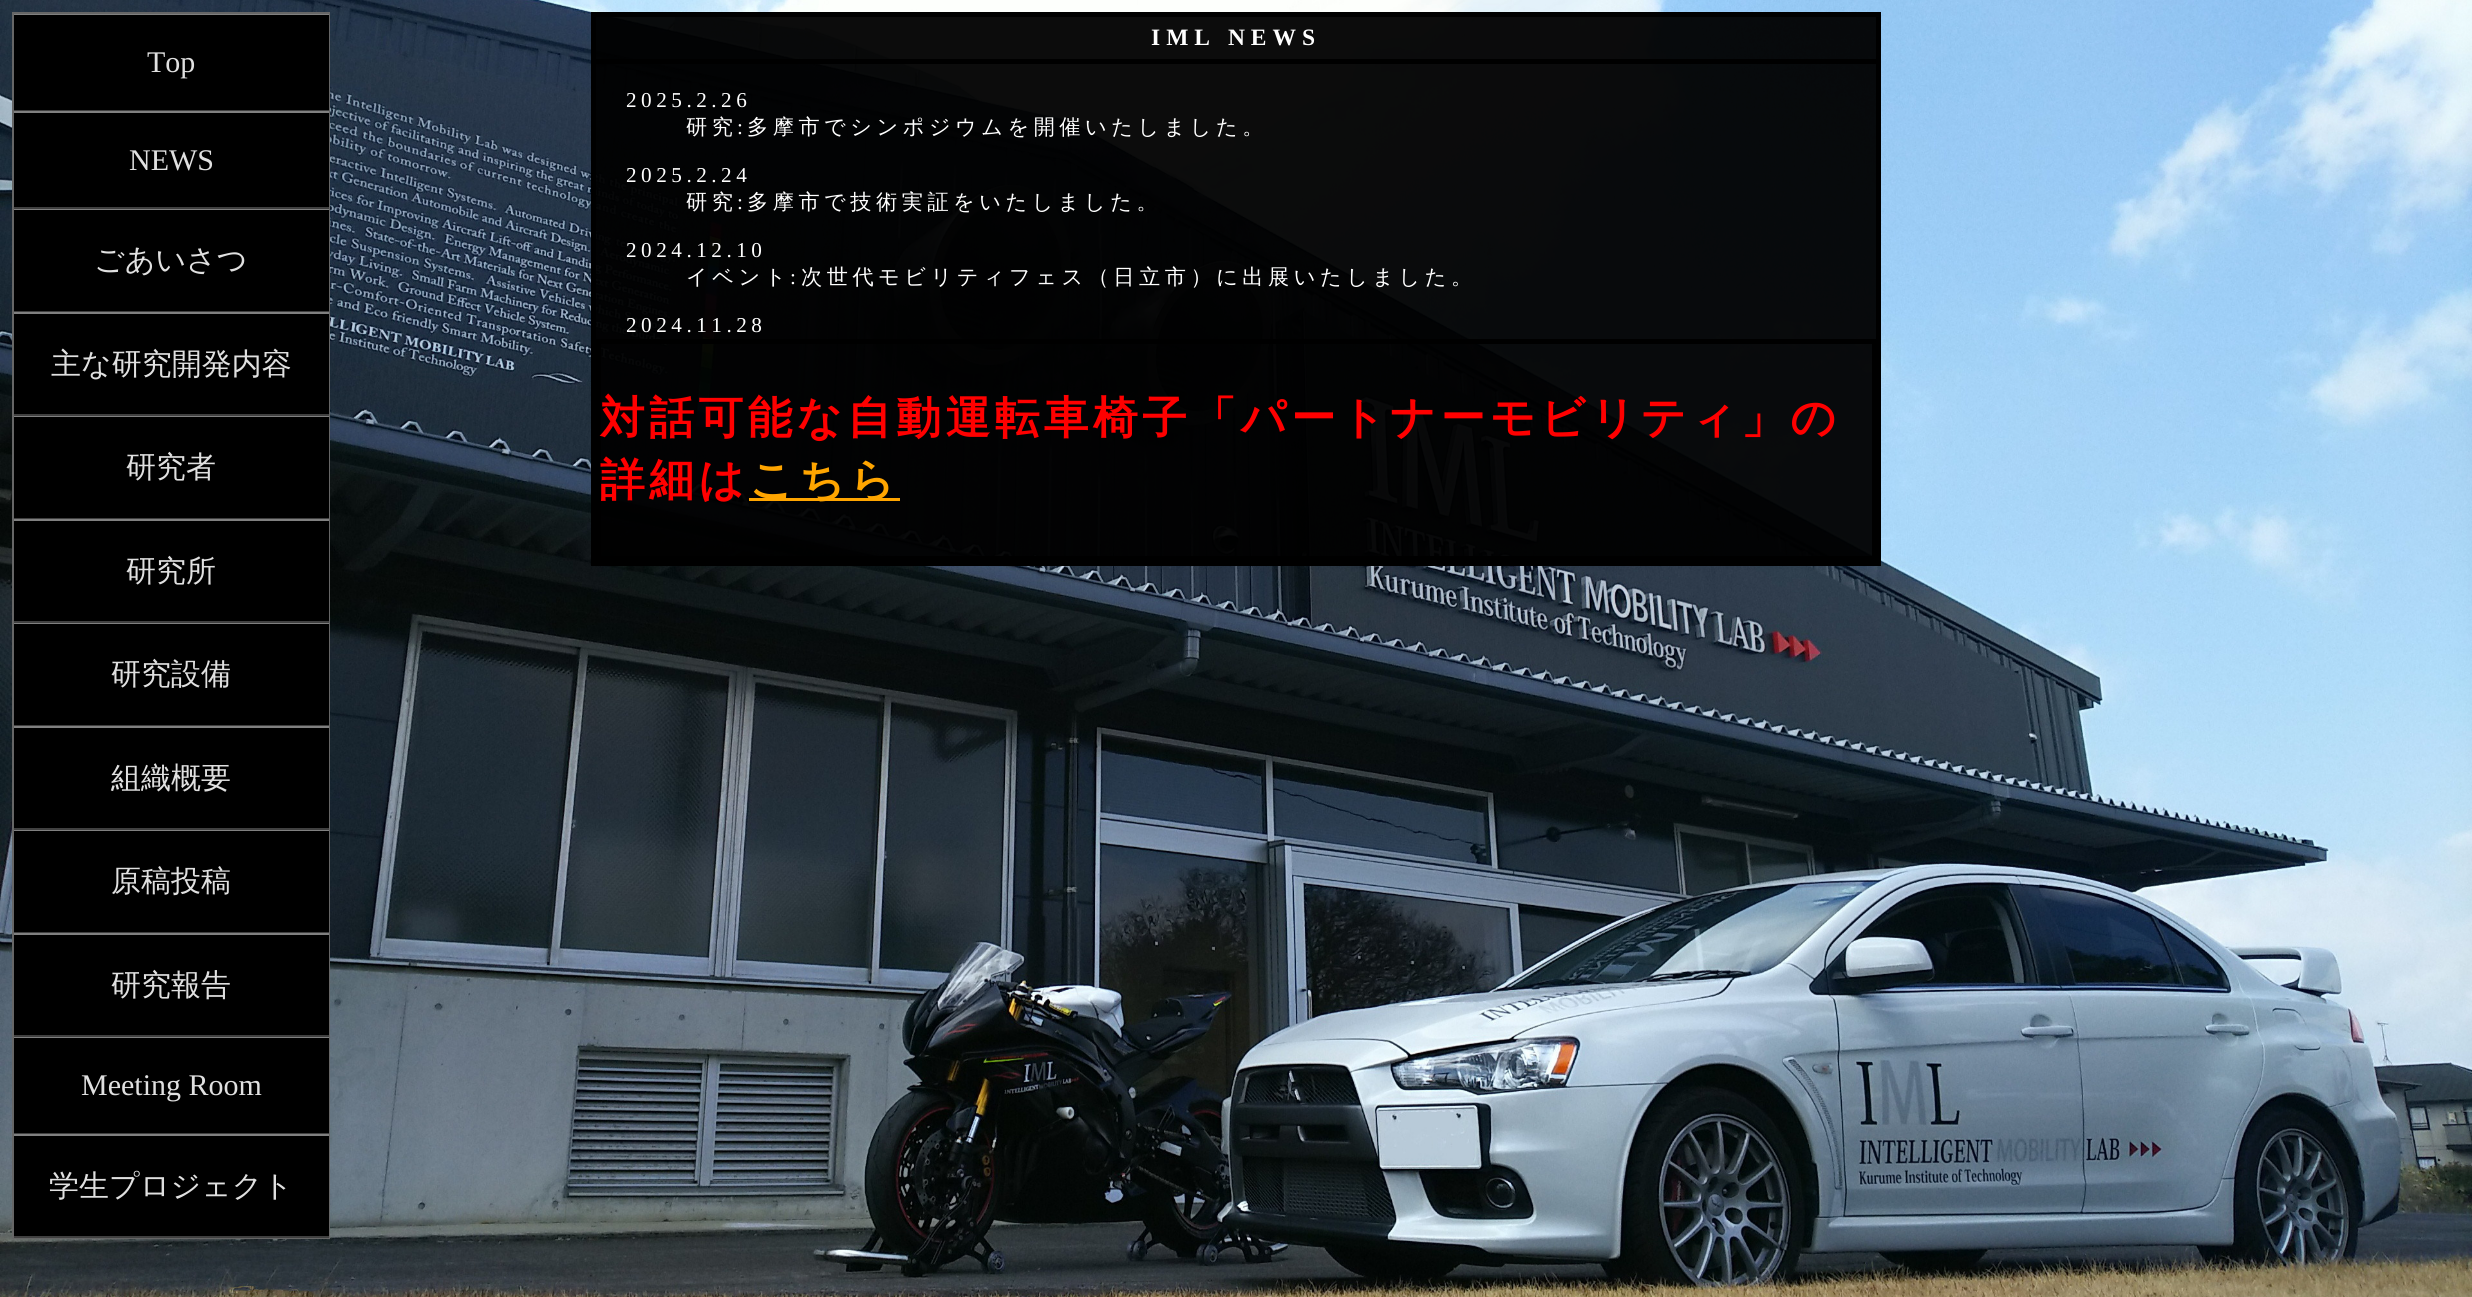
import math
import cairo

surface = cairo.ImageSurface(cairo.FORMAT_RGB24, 2472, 1297)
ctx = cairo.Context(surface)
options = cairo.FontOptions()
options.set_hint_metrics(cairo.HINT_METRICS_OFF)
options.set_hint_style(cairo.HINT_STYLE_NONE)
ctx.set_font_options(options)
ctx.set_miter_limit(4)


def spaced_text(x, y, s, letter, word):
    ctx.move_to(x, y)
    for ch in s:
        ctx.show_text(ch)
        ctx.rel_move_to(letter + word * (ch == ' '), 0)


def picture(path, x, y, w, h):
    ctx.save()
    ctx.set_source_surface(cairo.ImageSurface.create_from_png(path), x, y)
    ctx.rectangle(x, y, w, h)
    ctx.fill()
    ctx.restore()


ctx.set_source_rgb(1, 1, 1)
ctx.paint()
picture("img1.png", 0, 0, 2472, 1297)
ctx.rectangle(13, 13, 316, 1225)
ctx.set_source_rgb(0.4, 0.4, 0.4)
ctx.stroke()
ctx.set_source_rgb(0.502, 0.502, 0.502)
ctx.rectangle(14, 14, 315, 1)
ctx.fill()
ctx.set_source_rgb(0.251, 0.251, 0.251)
ctx.rectangle(14, 110, 315, 1)
ctx.fill()
ctx.set_source_rgb(0, 0, 0)
ctx.rectangle(14, 15, 315, 95)
ctx.fill()
ctx.select_font_face("Liberation Serif")
ctx.set_font_size(30)
ctx.set_source_rgb(0.878, 0.878, 0.878)
ctx.move_to(147, 72)
ctx.show_text("Top")
ctx.set_source_rgb(0.502, 0.502, 0.502)
ctx.rectangle(14, 111, 315, 2)
ctx.fill()
ctx.set_source_rgb(0.251, 0.251, 0.251)
ctx.rectangle(14, 207, 315, 2)
ctx.fill()
ctx.set_source_rgb(0, 0, 0)
ctx.rectangle(14, 113, 315, 94)
ctx.fill()
ctx.set_source_rgb(0.878, 0.878, 0.878)
ctx.move_to(129, 170)
ctx.show_text("NEWS")
ctx.set_source_rgb(0.502, 0.502, 0.502)
ctx.rectangle(14, 209, 315, 1)
ctx.fill()
ctx.set_source_rgb(0.251, 0.251, 0.251)
ctx.rectangle(14, 311, 315, 1)
ctx.fill()
ctx.set_source_rgb(0, 0, 0)
ctx.rectangle(14, 210, 315, 101)
ctx.fill()
ctx.select_font_face("WenQuanYi Zen Hei Medium")
ctx.set_source_rgb(0.878, 0.878, 0.878)
ctx.move_to(94, 270)
ctx.show_text("ごあいさつ")
ctx.set_source_rgb(0.502, 0.502, 0.502)
ctx.rectangle(14, 312, 315, 2)
ctx.fill()
ctx.set_source_rgb(0.251, 0.251, 0.251)
ctx.rectangle(14, 414, 315, 2)
ctx.fill()
ctx.set_source_rgb(0, 0, 0)
ctx.rectangle(14, 314, 315, 100)
ctx.fill()
ctx.set_source_rgb(0.878, 0.878, 0.878)
ctx.move_to(51, 374)
ctx.show_text("主な研究開発内容")
ctx.set_source_rgb(0.502, 0.502, 0.502)
ctx.rectangle(14, 416, 315, 1)
ctx.fill()
ctx.set_source_rgb(0.251, 0.251, 0.251)
ctx.rectangle(14, 518, 315, 1)
ctx.fill()
ctx.set_source_rgb(0, 0, 0)
ctx.rectangle(14, 417, 315, 101)
ctx.fill()
ctx.set_source_rgb(0.878, 0.878, 0.878)
ctx.move_to(126, 477)
ctx.show_text("研究者")
ctx.set_source_rgb(0.502, 0.502, 0.502)
ctx.rectangle(14, 519, 315, 2)
ctx.fill()
ctx.set_source_rgb(0.251, 0.251, 0.251)
ctx.rectangle(14, 621, 315, 2)
ctx.fill()
ctx.set_source_rgb(0, 0, 0)
ctx.rectangle(14, 521, 315, 100)
ctx.fill()
ctx.set_source_rgb(0.878, 0.878, 0.878)
ctx.move_to(126, 581)
ctx.show_text("研究所")
ctx.set_source_rgb(0.502, 0.502, 0.502)
ctx.rectangle(14, 623, 315, 1)
ctx.fill()
ctx.set_source_rgb(0.251, 0.251, 0.251)
ctx.rectangle(14, 725, 315, 1)
ctx.fill()
ctx.set_source_rgb(0, 0, 0)
ctx.rectangle(14, 624, 315, 101)
ctx.fill()
ctx.set_source_rgb(0.878, 0.878, 0.878)
ctx.move_to(111, 684)
ctx.show_text("研究設備")
ctx.set_source_rgb(0.502, 0.502, 0.502)
ctx.rectangle(14, 726, 315, 2)
ctx.fill()
ctx.set_source_rgb(0.251, 0.251, 0.251)
ctx.rectangle(14, 828, 315, 2)
ctx.fill()
ctx.set_source_rgb(0, 0, 0)
ctx.rectangle(14, 728, 315, 100)
ctx.fill()
ctx.set_source_rgb(0.878, 0.878, 0.878)
ctx.move_to(111, 788)
ctx.show_text("組織概要")
ctx.set_source_rgb(0.502, 0.502, 0.502)
ctx.rectangle(14, 830, 315, 1)
ctx.fill()
ctx.set_source_rgb(0.251, 0.251, 0.251)
ctx.rectangle(14, 932, 315, 1)
ctx.fill()
ctx.set_source_rgb(0, 0, 0)
ctx.rectangle(14, 831, 315, 101)
ctx.fill()
ctx.set_source_rgb(0.878, 0.878, 0.878)
ctx.move_to(111, 891)
ctx.show_text("原稿投稿")
ctx.set_source_rgb(0.502, 0.502, 0.502)
ctx.rectangle(14, 933, 315, 2)
ctx.fill()
ctx.set_source_rgb(0.251, 0.251, 0.251)
ctx.rectangle(14, 1035, 315, 2)
ctx.fill()
ctx.set_source_rgb(0, 0, 0)
ctx.rectangle(14, 935, 315, 100)
ctx.fill()
ctx.set_source_rgb(0.878, 0.878, 0.878)
ctx.move_to(111, 995)
ctx.show_text("研究報告")
ctx.set_source_rgb(0.502, 0.502, 0.502)
ctx.rectangle(14, 1037, 315, 1)
ctx.fill()
ctx.set_source_rgb(0.251, 0.251, 0.251)
ctx.rectangle(14, 1133, 315, 1)
ctx.fill()
ctx.set_source_rgb(0, 0, 0)
ctx.rectangle(14, 1038, 315, 95)
ctx.fill()
ctx.select_font_face("Liberation Serif")
ctx.set_source_rgb(0.878, 0.878, 0.878)
ctx.move_to(81, 1095)
ctx.show_text("Meeting Room")
ctx.set_source_rgb(0.502, 0.502, 0.502)
ctx.rectangle(14, 1134, 315, 2)
ctx.fill()
ctx.set_source_rgb(0.251, 0.251, 0.251)
ctx.rectangle(14, 1236, 315, 2)
ctx.fill()
ctx.set_source_rgb(0, 0, 0)
ctx.rectangle(14, 1136, 315, 100)
ctx.fill()
ctx.select_font_face("WenQuanYi Zen Hei Medium")
ctx.set_source_rgb(0.878, 0.878, 0.878)
ctx.move_to(49, 1196)
ctx.show_text("学生プロジェクト")
ctx.rectangle(593.5, 14.5, 1285, 549)
ctx.set_source_rgb(0, 0, 0)
ctx.set_line_width(5)
ctx.stroke()
ctx.set_source_rgba(0, 0, 0, 0.95)
ctx.rectangle(596, 17, 1280, 42)
ctx.fill()
ctx.set_source_rgb(0, 0, 0)
ctx.rectangle(596, 59, 1281, 5)
ctx.fill()
ctx.select_font_face("Liberation Serif", cairo.FONT_SLANT_NORMAL, cairo.FONT_WEIGHT_BOLD)
ctx.set_font_size(23.5)
ctx.set_source_rgb(1, 1, 1)
spaced_text(1151, 45, "IML NEWS", 6, 0)
ctx.set_source_rgba(0, 0, 0, 0.95)
ctx.rectangle(596, 64, 1280, 275)
ctx.fill()
ctx.select_font_face("Liberation Serif")
ctx.set_font_size(21.2)
ctx.set_source_rgb(1, 1, 1)
spaced_text(626, 107, "2025.2.26", 4.5, 0)
ctx.select_font_face("WenQuanYi Zen Hei Medium")
spaced_text(686, 134, "研究", 4.5, 0)
ctx.select_font_face("Liberation Serif")
spaced_text(737, 134, ":", 4.5, 0)
ctx.select_font_face("WenQuanYi Zen Hei Medium")
spaced_text(747, 134, "多摩市でシンポジウムを開催いたしました。", 4.5, 0)
ctx.select_font_face("Liberation Serif")
spaced_text(626, 182, "2025.2.24", 4.5, 0)
ctx.select_font_face("WenQuanYi Zen Hei Medium")
spaced_text(686, 209, "研究", 4.5, 0)
ctx.select_font_face("Liberation Serif")
spaced_text(737, 209, ":", 4.5, 0)
ctx.select_font_face("WenQuanYi Zen Hei Medium")
spaced_text(747, 209, "多摩市で技術実証をいたしました。", 4.5, 0)
ctx.select_font_face("Liberation Serif")
spaced_text(626, 257, "2024.12.10", 4.5, 0)
ctx.select_font_face("WenQuanYi Zen Hei Medium")
spaced_text(686, 284, "イベント", 4.5, 0)
ctx.select_font_face("Liberation Serif")
spaced_text(790, 284, ":", 4.5, 0)
ctx.select_font_face("WenQuanYi Zen Hei Medium")
spaced_text(801, 284, "次世代モビリティフェス（日立市）に出展いたしました。", 4.5, 0)
ctx.select_font_face("Liberation Serif")
spaced_text(626, 332, "2024.11.28", 4.5, 0)
ctx.set_source_rgba(0, 0, 0, 0.95)
ctx.rectangle(598.5, 341.5, 1276, 217)
ctx.fill_preserve()
ctx.set_source_rgb(0, 0, 0)
ctx.stroke()
ctx.select_font_face("WenQuanYi Zen Hei", cairo.FONT_SLANT_NORMAL, cairo.FONT_WEIGHT_BOLD)
ctx.set_font_size(44.7)
ctx.set_source_rgb(1, 0, 0)
spaced_text(600, 433, "対話可能な自動運転車椅子「パートナーモビリティ」の", 4.5, 0)
spaced_text(600, 495, "詳細は", 4.5, 0)
ctx.set_source_rgb(1, 0.647, 0)
ctx.rectangle(749, 498, 151, 3)
ctx.fill()
spaced_text(749, 495, "こちら", 4.5, 0)
surface.write_to_png("page.png")
